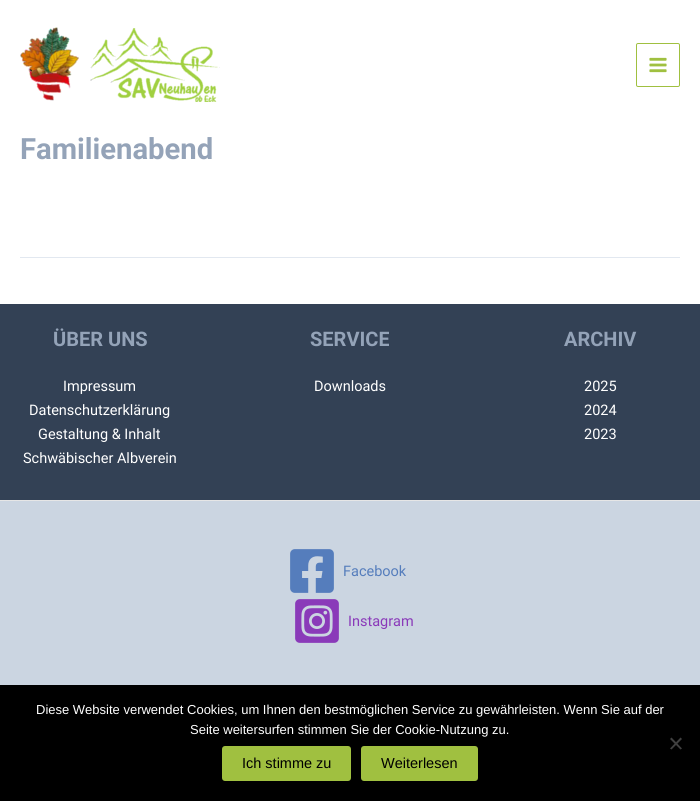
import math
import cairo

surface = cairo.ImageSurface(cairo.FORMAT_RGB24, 700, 801)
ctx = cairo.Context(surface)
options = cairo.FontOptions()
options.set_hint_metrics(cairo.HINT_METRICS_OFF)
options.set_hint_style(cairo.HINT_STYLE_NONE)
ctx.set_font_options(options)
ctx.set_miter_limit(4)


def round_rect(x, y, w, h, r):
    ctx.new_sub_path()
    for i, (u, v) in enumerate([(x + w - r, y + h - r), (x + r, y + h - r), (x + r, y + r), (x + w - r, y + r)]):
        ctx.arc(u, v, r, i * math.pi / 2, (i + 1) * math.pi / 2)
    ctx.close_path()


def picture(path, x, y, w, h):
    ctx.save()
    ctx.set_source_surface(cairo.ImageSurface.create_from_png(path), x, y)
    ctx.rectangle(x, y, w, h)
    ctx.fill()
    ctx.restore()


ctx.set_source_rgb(1, 1, 1)
ctx.paint()
picture("img1.png", 20, 27, 200, 75)
round_rect(636.5, 43.5, 43, 43, 1.5)
ctx.set_source_rgb(0.627, 0.753, 0.251)
ctx.set_line_width(1)
ctx.stroke()
picture("img2.png", 649, 57, 18, 16)
ctx.select_font_face("Roboto", cairo.FONT_SLANT_NORMAL, cairo.FONT_WEIGHT_BOLD)
ctx.set_font_size(29.25)
ctx.set_source_rgb(0.58, 0.639, 0.722)
ctx.move_to(20, 159)
ctx.show_text("Familienabend")
ctx.set_source_rgb(0.886, 0.91, 0.941)
ctx.rectangle(20, 257, 660, 1)
ctx.fill()
ctx.set_source_rgb(0.2, 0.255, 0.333)
ctx.rectangle(0, 304, 700, 196)
ctx.fill()
ctx.set_font_size(20)
ctx.set_source_rgb(0.58, 0.639, 0.722)
ctx.move_to(53, 346)
ctx.show_text("ÜBER UNS")
ctx.select_font_face("Roboto")
ctx.set_font_size(14.5)
ctx.set_source_rgb(1, 1, 1)
ctx.move_to(63, 391)
ctx.show_text("Impressum")
ctx.move_to(29, 415)
ctx.show_text("Datenschutzerklärung")
ctx.move_to(38, 439)
ctx.show_text("Gestaltung & Inhalt")
ctx.move_to(23, 463)
ctx.show_text("Schwäbischer Albverein")
ctx.select_font_face("Roboto", cairo.FONT_SLANT_NORMAL, cairo.FONT_WEIGHT_BOLD)
ctx.set_font_size(20)
ctx.set_source_rgb(0.58, 0.639, 0.722)
ctx.move_to(310, 346)
ctx.show_text("SERVICE")
ctx.select_font_face("Roboto")
ctx.set_font_size(14.5)
ctx.set_source_rgb(1, 1, 1)
ctx.move_to(314, 391)
ctx.show_text("Downloads")
ctx.select_font_face("Roboto", cairo.FONT_SLANT_NORMAL, cairo.FONT_WEIGHT_BOLD)
ctx.set_font_size(20)
ctx.set_source_rgb(0.58, 0.639, 0.722)
ctx.move_to(564, 346)
ctx.show_text("ARCHIV")
ctx.select_font_face("Roboto")
ctx.set_font_size(14.5)
ctx.set_source_rgb(1, 1, 1)
ctx.move_to(584, 391)
ctx.show_text("2025")
ctx.move_to(584, 415)
ctx.show_text("2024")
ctx.move_to(584, 439)
ctx.show_text("2023")
ctx.set_source_rgb(0.796, 0.835, 0.882)
ctx.rectangle(0, 501, 700, 184)
ctx.fill()
ctx.set_source_rgb(0.902, 0.902, 0.902)
ctx.rectangle(0, 500, 700, 1)
ctx.fill()
picture("img3.png", 290, 549, 44, 44)
ctx.set_source_rgb(0.333, 0.49, 0.737)
ctx.move_to(343, 576)
ctx.show_text("Facebook")
picture("img4.png", 295, 599, 44, 44)
ctx.set_source_rgb(0.541, 0.227, 0.725)
ctx.move_to(348, 626)
ctx.show_text("Instagram")
ctx.set_source_rgb(0, 0, 0)
ctx.rectangle(0, 685, 700, 116)
ctx.fill()
ctx.select_font_face("Liberation Sans")
ctx.set_font_size(13)
ctx.set_source_rgb(1, 1, 1)
ctx.move_to(36, 714)
ctx.show_text("Diese Website verwendet Cookies, um Ihnen den bestmöglichen Service zu gewährleisten. Wenn Sie auf der")
ctx.move_to(190, 734)
ctx.show_text("Seite weitersurfen stimmen Sie der Cookie-Nutzung zu.")
ctx.set_source_rgb(0.251, 0.251, 0.251)
ctx.new_path()
ctx.move_to(680.5, 737.5)
ctx.line_to(682, 739)
ctx.line_to(671.5, 749.5)
ctx.line_to(670, 748.5)
ctx.close_path()
ctx.fill()
ctx.new_path()
ctx.move_to(670, 739)
ctx.line_to(671.5, 737.5)
ctx.line_to(682, 748.5)
ctx.line_to(680.5, 749.5)
ctx.close_path()
ctx.fill()
ctx.set_source_rgb(0.627, 0.753, 0.251)
round_rect(222, 746, 129, 35, 3)
ctx.fill()
ctx.set_font_size(14.5)
ctx.set_source_rgb(0, 0, 0)
ctx.move_to(242, 768)
ctx.show_text("Ich stimme zu")
ctx.set_source_rgb(0.627, 0.753, 0.251)
round_rect(361, 746, 117, 35, 3)
ctx.fill()
ctx.set_source_rgb(0, 0, 0)
ctx.move_to(381, 768)
ctx.show_text("Weiterlesen")
surface.write_to_png("page.png")
